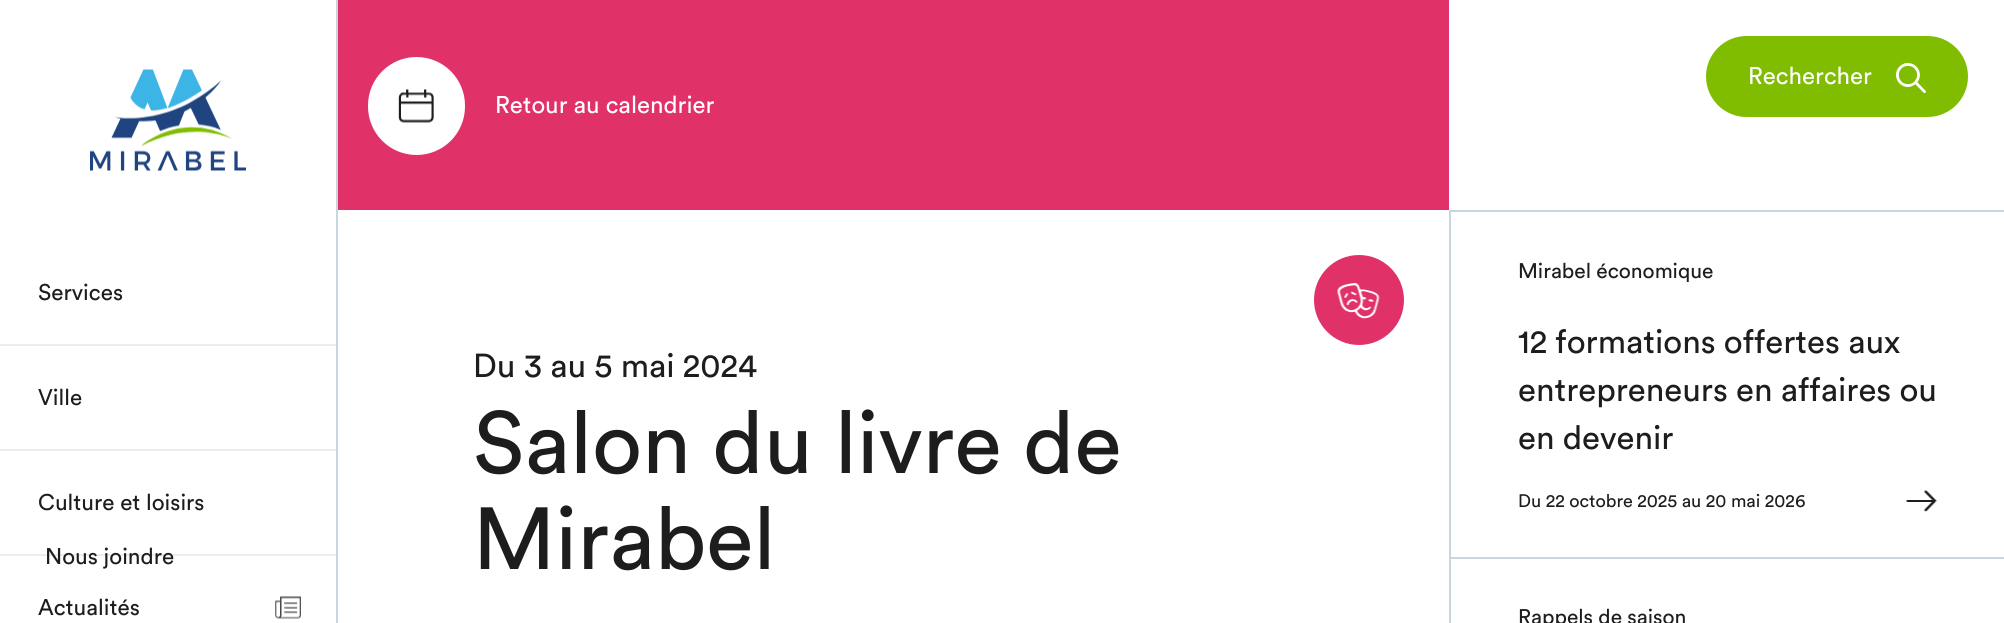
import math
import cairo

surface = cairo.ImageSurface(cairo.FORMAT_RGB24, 2004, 623)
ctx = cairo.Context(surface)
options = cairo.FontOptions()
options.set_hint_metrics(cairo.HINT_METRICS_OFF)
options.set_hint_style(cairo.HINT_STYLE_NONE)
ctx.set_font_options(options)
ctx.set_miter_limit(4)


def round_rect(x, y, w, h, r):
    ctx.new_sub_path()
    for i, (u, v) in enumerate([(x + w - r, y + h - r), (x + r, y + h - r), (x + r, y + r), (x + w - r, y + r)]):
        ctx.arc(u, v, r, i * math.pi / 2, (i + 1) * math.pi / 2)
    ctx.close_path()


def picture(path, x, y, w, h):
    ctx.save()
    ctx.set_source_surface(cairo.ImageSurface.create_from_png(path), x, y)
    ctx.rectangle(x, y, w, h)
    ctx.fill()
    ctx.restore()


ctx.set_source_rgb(1, 1, 1)
ctx.paint()
ctx.set_source_rgb(0.502, 0.737, 0)
round_rect(1706, 36, 262, 81, 40.5)
ctx.fill()
ctx.select_font_face("Circular")
ctx.set_font_size(24)
ctx.set_source_rgb(1, 1, 1)
ctx.move_to(1748, 84)
ctx.show_text("Rechercher")
picture("img1.png", 1896, 63, 30, 30)
ctx.set_source_rgb(0.784, 0.843, 0.871)
ctx.rectangle(336, 0, 2, 623)
ctx.fill()
picture("img2.png", 90, 69, 156, 102)
ctx.set_source_rgb(0.906, 0.937, 0.953)
ctx.rectangle(0, 344, 336, 2)
ctx.fill()
ctx.set_font_size(22.5)
ctx.set_source_rgb(0.114, 0.114, 0.114)
ctx.move_to(38, 300)
ctx.show_text("Services")
ctx.set_source_rgb(0.906, 0.937, 0.953)
ctx.rectangle(0, 449, 336, 2)
ctx.fill()
ctx.set_source_rgb(0.114, 0.114, 0.114)
ctx.move_to(38, 405)
ctx.show_text("Ville")
ctx.set_source_rgb(0.906, 0.937, 0.953)
ctx.rectangle(0, 554, 336, 2)
ctx.fill()
ctx.set_source_rgb(0.114, 0.114, 0.114)
ctx.move_to(38, 510)
ctx.show_text("Culture et loisirs")
ctx.move_to(38, 615)
ctx.show_text("Actualités")
picture("img3.png", 275, 596, 26, 23)
ctx.move_to(45, 564)
ctx.show_text("Nous joindre")
ctx.set_source_rgb(0.878, 0.196, 0.408)
ctx.rectangle(338, 0, 1111, 210)
ctx.fill()
ctx.set_source_rgb(1, 1, 1)
round_rect(368, 57, 97, 98, 48.5)
ctx.fill()
picture("img4.png", 398, 89, 36, 34)
ctx.set_font_size(24)
ctx.move_to(495, 113)
ctx.show_text("Retour au calendrier")
ctx.set_source_rgb(0.878, 0.196, 0.408)
ctx.new_path()
ctx.arc(1359, 300, 45, 0, 2 * math.pi)
ctx.fill()
picture("img5.png", 1337, 283, 43, 36)
ctx.set_font_size(33)
ctx.set_source_rgb(0.114, 0.114, 0.114)
ctx.move_to(473, 377)
ctx.show_text("Du 3 au 5 mai 2024")
ctx.set_font_size(87)
ctx.move_to(473, 473)
ctx.show_text("Salon du livre de")
ctx.move_to(473, 569)
ctx.show_text("Mirabel")
ctx.set_source_rgb(0.784, 0.843, 0.871)
ctx.rectangle(1449, 210, 555, 2)
ctx.fill()
ctx.rectangle(1449, 210, 2, 413)
ctx.fill()
ctx.set_font_size(21)
ctx.set_source_rgb(0.114, 0.114, 0.114)
ctx.move_to(1518, 278)
ctx.show_text("Mirabel économique")
ctx.set_font_size(33)
ctx.move_to(1518, 353)
ctx.show_text("12 formations offertes aux")
ctx.move_to(1518, 401)
ctx.show_text("entrepreneurs en affaires ou")
ctx.move_to(1518, 449)
ctx.show_text("en devenir")
ctx.set_font_size(18)
ctx.move_to(1518, 507)
ctx.show_text("Du 22 octobre 2025 au 20 mai 2026")
picture("img6.png", 1906, 490, 31, 22)
ctx.set_source_rgb(0.784, 0.843, 0.871)
ctx.rectangle(1451, 557, 553, 2)
ctx.fill()
ctx.set_font_size(21)
ctx.set_source_rgb(0.114, 0.114, 0.114)
ctx.move_to(1518, 624)
ctx.show_text("Rappels de saison")
surface.write_to_png("page.png")
